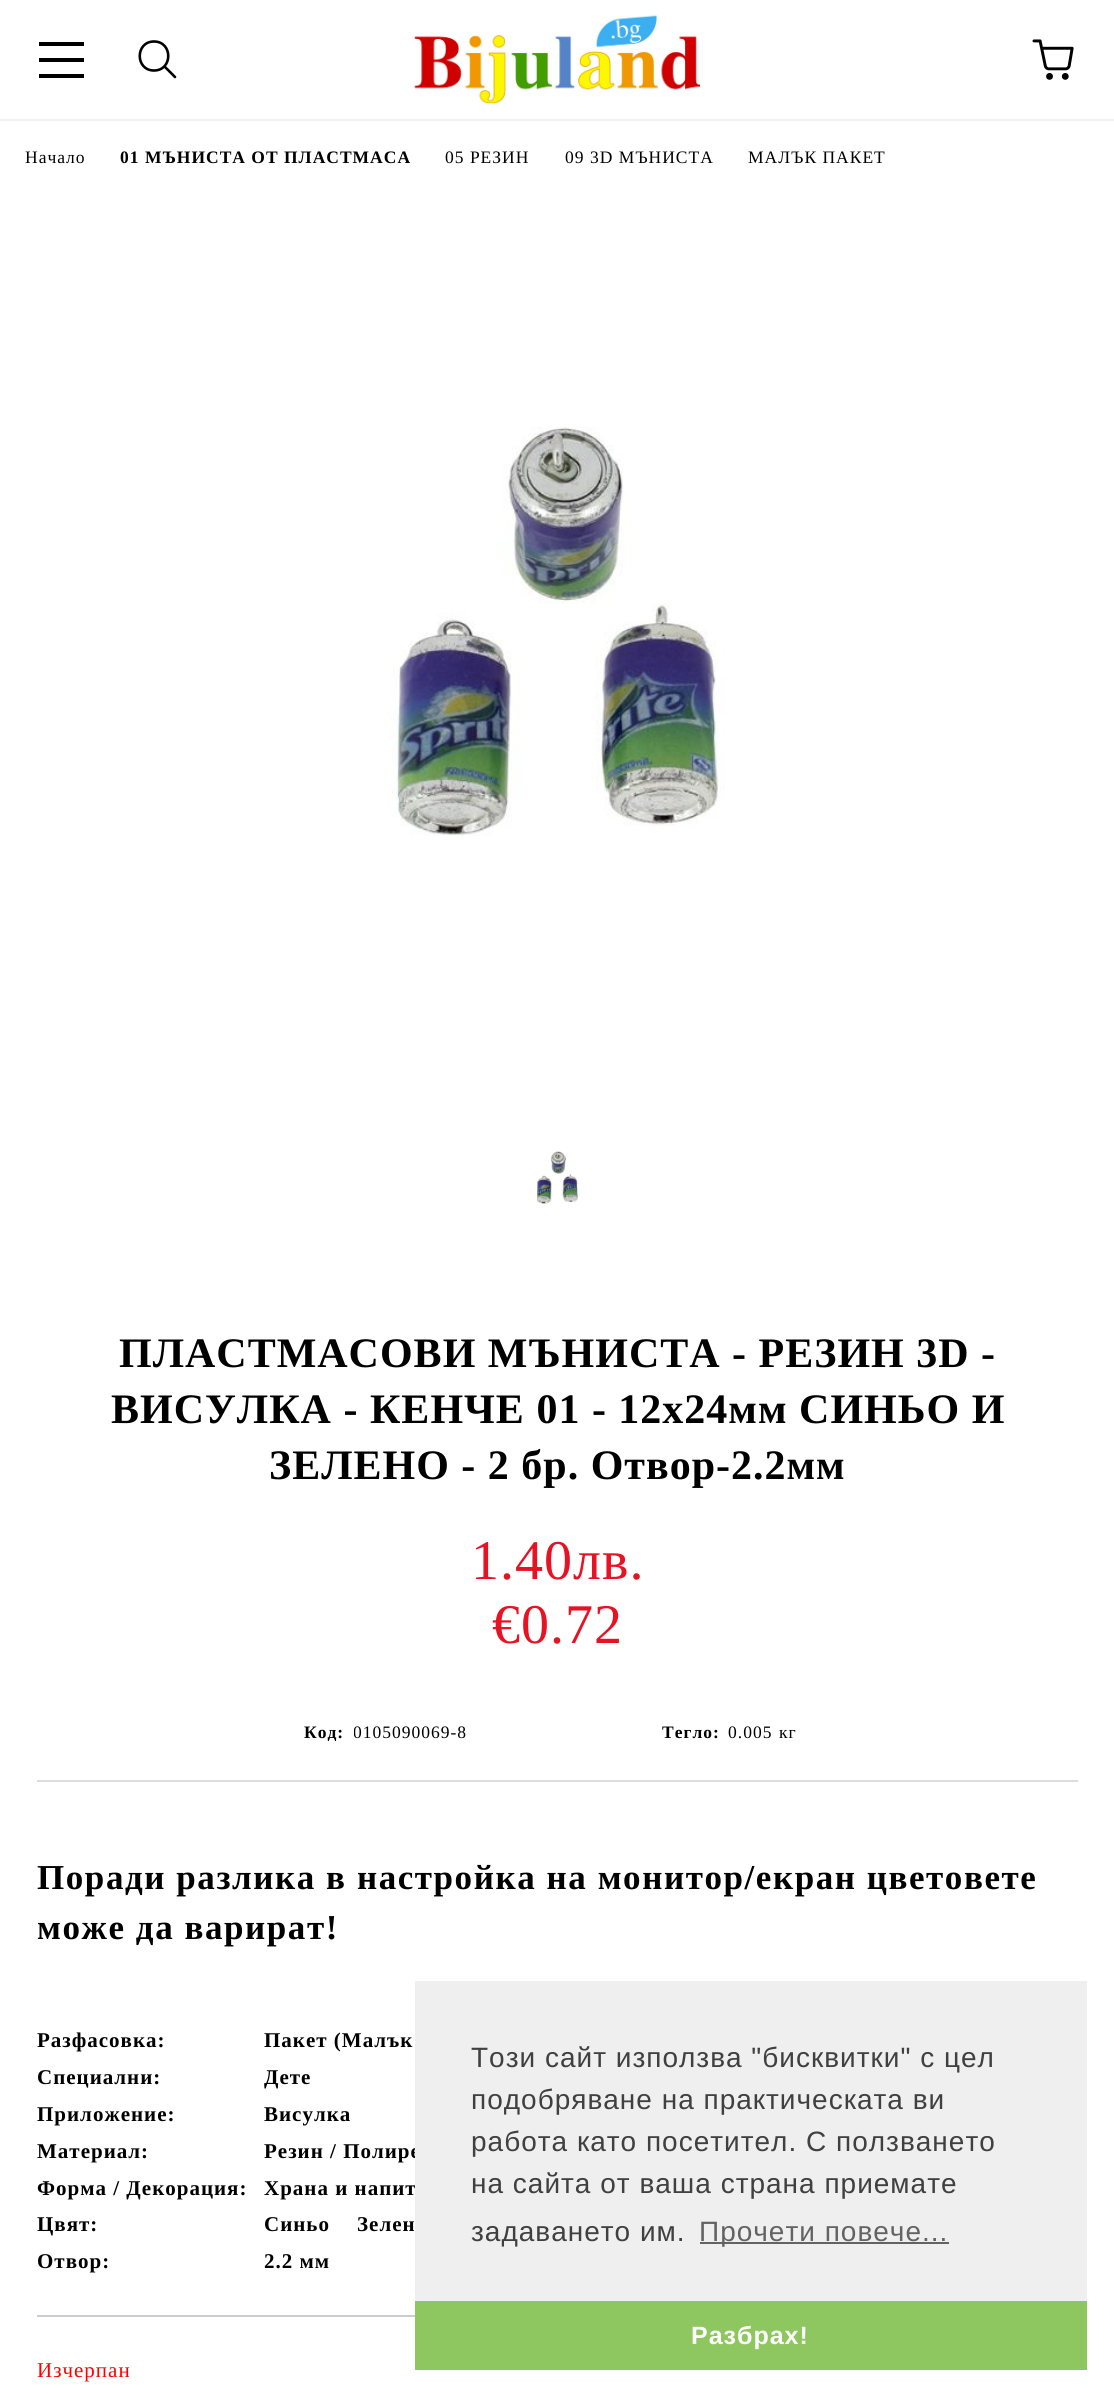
import math
import cairo

surface = cairo.ImageSurface(cairo.FORMAT_RGB24, 1114, 2396)
ctx = cairo.Context(surface)
options = cairo.FontOptions()
options.set_hint_metrics(cairo.HINT_METRICS_OFF)
options.set_hint_style(cairo.HINT_STYLE_NONE)
ctx.set_font_options(options)
ctx.set_miter_limit(4)


def spaced_text(x, y, s, letter, word):
    ctx.move_to(x, y)
    for ch in s:
        ctx.show_text(ch)
        ctx.rel_move_to(letter + word * (ch == ' '), 0)


def picture(path, x, y, w, h):
    ctx.save()
    ctx.set_source_surface(cairo.ImageSurface.create_from_png(path), x, y)
    ctx.rectangle(x, y, w, h)
    ctx.fill()
    ctx.restore()


ctx.set_source_rgb(1, 1, 1)
ctx.paint()
ctx.set_source_rgb(0.945, 0.945, 0.945)
ctx.rectangle(0, 119, 1114, 2)
ctx.fill()
ctx.set_source_rgb(0, 0, 0)
ctx.rectangle(39, 42, 45, 4)
ctx.fill()
ctx.rectangle(39, 58, 45, 4)
ctx.fill()
ctx.rectangle(39, 74, 45, 4)
ctx.fill()
ctx.new_path()
ctx.move_to(154, 41.5)
ctx.curve_to(135, 41.5, 135, 70.5, 154, 70.5)
ctx.curve_to(173, 70.5, 173, 41.5, 154, 41.5)
ctx.close_path()
ctx.set_line_width(2.6)
ctx.stroke()
ctx.new_path()
ctx.move_to(165, 67)
ctx.line_to(175, 77)
ctx.set_line_cap(cairo.LINE_CAP_ROUND)
ctx.stroke()
picture("img1.png", 414, 15, 286, 89)
picture("img2.png", 1032, 39, 42, 41)
ctx.select_font_face("Liberation Serif")
ctx.set_font_size(17.5)
spaced_text(25, 163, "Начало", 1, 0)
ctx.select_font_face("Liberation Serif", cairo.FONT_SLANT_NORMAL, cairo.FONT_WEIGHT_BOLD)
spaced_text(120, 163, "01 МЪНИСТА ОТ ПЛАСТМАСА", 1, 0)
ctx.select_font_face("Liberation Serif")
spaced_text(445, 163, "05 РЕЗИН", 1, 0)
spaced_text(565, 163, "09 3D МЪНИСТА", 1, 0)
spaced_text(748, 163, "МАЛЪК ПАКЕТ", 1, 0)
picture("img3.png", 390, 426, 335, 410)
picture("img4.png", 537, 1151, 41, 53)
ctx.select_font_face("Liberation Serif", cairo.FONT_SLANT_NORMAL, cairo.FONT_WEIGHT_BOLD)
ctx.set_font_size(42)
spaced_text(119, 1367, "ПЛАСТМАСОВИ МЪНИСТА - РЕЗИН 3D -", 1, 0)
spaced_text(111, 1423, "ВИСУЛКА - КЕНЧЕ 01 - 12х24мм СИНЬО И", 1, 0)
spaced_text(269, 1479, "ЗЕЛЕНО - 2 бр. Отвор-2.2мм", 1, 0)
ctx.select_font_face("Liberation Serif")
ctx.set_font_size(56)
ctx.set_source_rgb(0.91, 0.071, 0.145)
spaced_text(471, 1579, "1.40лв.", 1, 0)
spaced_text(492, 1643, "€0.72", 1, 0)
ctx.set_source_rgb(0.867, 0.867, 0.867)
ctx.rectangle(37, 1780, 1041, 2)
ctx.fill()
ctx.select_font_face("Liberation Serif", cairo.FONT_SLANT_NORMAL, cairo.FONT_WEIGHT_BOLD)
ctx.set_font_size(17.5)
ctx.set_source_rgb(0, 0, 0)
spaced_text(304, 1738, "Код:", 1, 0)
ctx.save()
ctx.rectangle(354, 1720, 113, 25)
ctx.clip()
ctx.select_font_face("Liberation Serif")
spaced_text(353, 1738, "0105090069-8", 1, 0)
ctx.restore()
spaced_text(662, 1738, "Тегло:", 1, 0)
ctx.select_font_face("Liberation Serif")
spaced_text(728, 1738, "0.005", 1, 0)
spaced_text(779, 1738, "кг", 1, 0)
ctx.select_font_face("Liberation Serif", cairo.FONT_SLANT_NORMAL, cairo.FONT_WEIGHT_BOLD)
ctx.set_font_size(35)
spaced_text(37, 1889, "Поради разлика в настройка на монитор/екран цветовете", 1.57, 0)
spaced_text(37, 1939, "може да варират!", 1.57, 0)
ctx.set_font_size(21)
spaced_text(37, 2047, "Разфасовка:", 1, 0)
spaced_text(264, 2047, "Пакет (Малък", 1, 0)
spaced_text(37, 2084, "Специални:", 1, 0)
spaced_text(264, 2084, "Дете", 1, 0)
spaced_text(37, 2121, "Приложение:", 1, 0)
spaced_text(264, 2121, "Висулка", 1, 0)
spaced_text(37, 2158, "Материал:", 1, 0)
spaced_text(264, 2158, "Резин / Полире", 1, 0)
spaced_text(37, 2195, "Форма / Декорация:", 1, 0)
spaced_text(264, 2195, "Храна и напит", 1, 0)
spaced_text(37, 2231, "Цвят:", 1, 0)
spaced_text(264, 2231, "Синьо", 1, 0)
spaced_text(357, 2231, "Зелен", 1, 0)
spaced_text(37, 2268, "Отвор:", 1, 0)
spaced_text(264, 2268, "2.2 мм", 1, 0)
ctx.set_source_rgb(0.8, 0.8, 0.8)
ctx.rectangle(37, 2315, 378, 2)
ctx.fill()
ctx.select_font_face("Liberation Serif")
ctx.set_source_rgb(1, 0, 0)
spaced_text(37, 2377, "Изчерпан", 1, 0)
ctx.set_source_rgb(0.937, 0.937, 0.937)
ctx.rectangle(415, 1981, 672, 320)
ctx.fill()
ctx.select_font_face("Liberation Sans")
ctx.set_font_size(28)
ctx.set_source_rgb(0.251, 0.251, 0.251)
spaced_text(471, 2067, "Този сайт използва \"бисквитки\" с цел", 1, 0)
spaced_text(471, 2109, "подобряване на практическата ви", 1, 0)
spaced_text(471, 2151, "работа като посетител. С ползването", 1, 0)
spaced_text(471, 2193, "на сайта от ваша страна приемате", 1, 0)
spaced_text(471, 2241, "задаването им.", 1, 0)
ctx.set_source_rgb(0.388, 0.388, 0.388)
ctx.rectangle(700, 2242, 249, 2)
ctx.fill()
spaced_text(699, 2241, "Прочети повече...", 1, 0)
ctx.set_source_rgb(0.557, 0.78, 0.376)
ctx.rectangle(415, 2301, 672, 69)
ctx.fill()
ctx.select_font_face("Liberation Sans", cairo.FONT_SLANT_NORMAL, cairo.FONT_WEIGHT_BOLD)
ctx.set_font_size(25)
ctx.set_source_rgb(1, 1, 1)
spaced_text(691, 2344, "Разбрах!", 1, 0)
surface.write_to_png("page.png")
